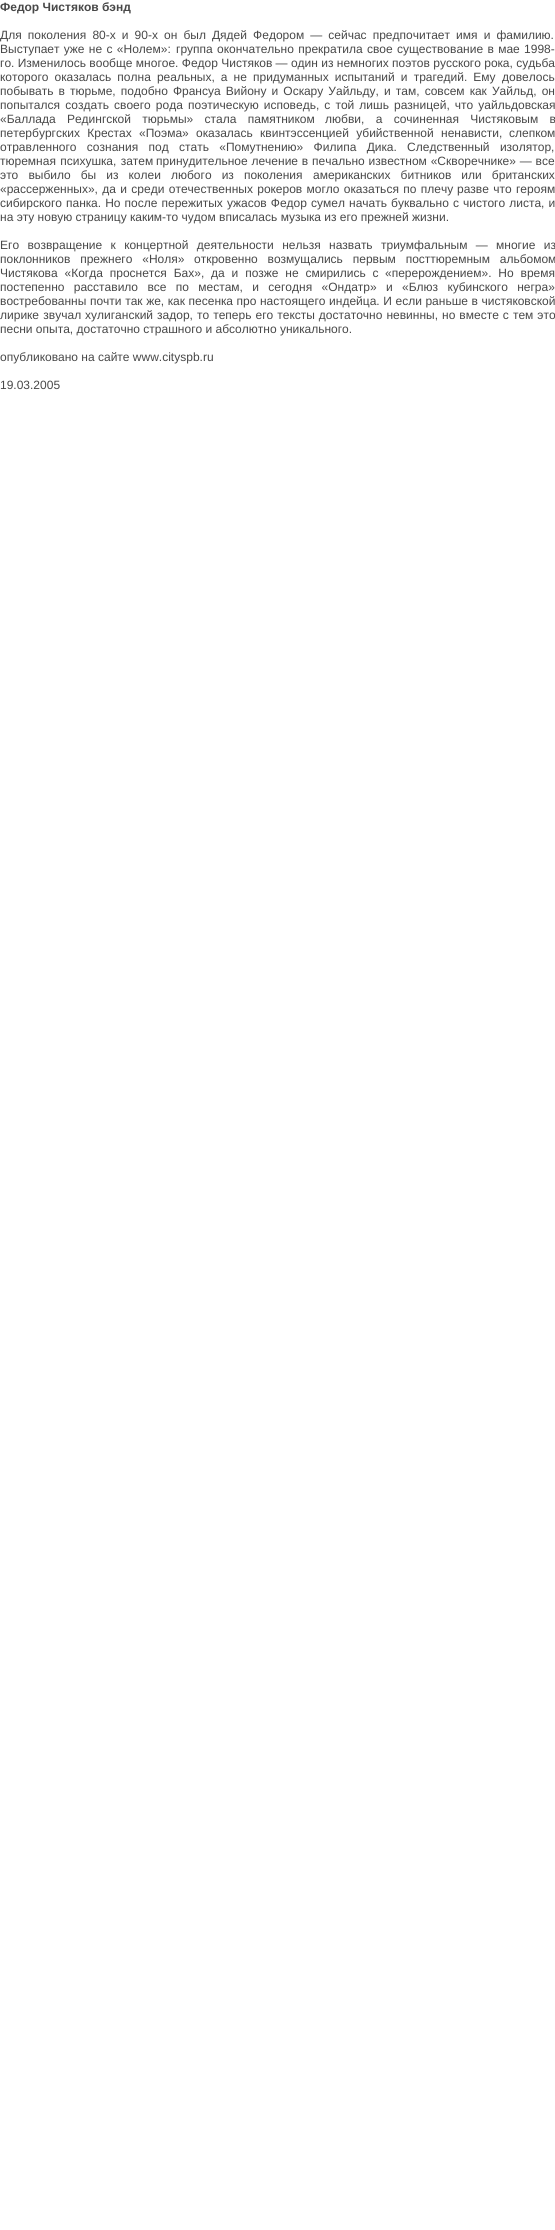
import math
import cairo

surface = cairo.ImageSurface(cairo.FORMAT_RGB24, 555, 2230)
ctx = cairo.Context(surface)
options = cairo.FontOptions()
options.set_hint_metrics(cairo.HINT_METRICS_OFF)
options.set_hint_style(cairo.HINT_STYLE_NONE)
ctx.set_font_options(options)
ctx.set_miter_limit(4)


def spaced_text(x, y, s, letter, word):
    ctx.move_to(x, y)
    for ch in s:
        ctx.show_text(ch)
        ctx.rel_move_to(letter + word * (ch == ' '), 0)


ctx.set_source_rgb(1, 1, 1)
ctx.paint()
ctx.select_font_face("Liberation Sans", cairo.FONT_SLANT_NORMAL, cairo.FONT_WEIGHT_BOLD)
ctx.set_font_size(12)
ctx.set_source_rgb(0.282, 0.282, 0.282)
ctx.move_to(0, 11)
ctx.show_text("Федор Чистяков бэнд")
ctx.select_font_face("Liberation Sans")
spaced_text(0, 39, "Для поколения 80-х и 90-х он был Дядей Федором — сейчас предпочитает имя и фамилию.", 0, 2.75)
spaced_text(0, 53, "Выступает уже не с «Нолем»:", 0, 1)
spaced_text(176, 53, "группа окончательно прекратила свое существование в мае 1998-", 0, 1)
ctx.move_to(0, 67)
ctx.show_text("го. Изменилось вообще многое. Федор Чистяков — один из немногих поэтов русского рока, судьба")
spaced_text(0, 81, "которого оказалась полна реальных, а не придуманных испытаний и трагедий. Ему", 0, 2.75)
ctx.move_to(502, 81)
ctx.show_text("довелось")
spaced_text(0, 95, "побывать в тюрьме, подобно Франсуа Вийону и Оскару Уайльду, и там, совсем как Уайльд, он", 0, 1.75)
spaced_text(0, 109, "попытался создать", 0, 2)
spaced_text(114, 109, "своего рода поэтическую исповедь, с той лишь разницей, что уайльдовская", 0, 1.75)
spaced_text(0, 123, "«Баллада Редингской тюрьмы» стала памятником", 0, 8)
spaced_text(325, 123, "любви, а сочиненная Чистяковым в", 0, 8)
spaced_text(0, 137, "петербургских Крестах «Поэма» оказалась квинтэссенцией убийственной ненависти,", 0, 4)
ctx.move_to(509, 137)
ctx.show_text("слепком")
spaced_text(0, 151, "отравленного сознания под стать «Помутнению» Филипа Дика. Следственный изолятор,", 0, 7)
spaced_text(0, 165, "тюремная психушка, затем", 0, 1)
spaced_text(156, 165, "принудительное лечение в печально известном «Скворечнике» — все", 0, 0.5)
spaced_text(0, 179, "это выбило бы из колеи любого из поколения", 0, 6.75)
spaced_text(313, 179, "американских битников или британских", 0, 6.75)
spaced_text(0, 193, "«рассерженных», да и среди отечественных рокеров могло оказаться по плечу", 0, 1)
spaced_text(457, 193, "разве что героям", 0, 1)
spaced_text(0, 207, "сибирского панка. Но после пережитых ужасов Федор сумел начать буквально с чистого листа, и", 0, 0.75)
ctx.move_to(0, 221)
ctx.show_text("на эту новую страницу каким-то чудом вписалась музыка из его прежней жизни.")
spaced_text(0, 249, "Его возвращение к концертной деятельности нельзя назвать триумфальным — многие из", 0, 5)
spaced_text(0, 263, "поклонников прежнего «Ноля»", 0, 6.5)
spaced_text(194, 263, "откровенно возмущались первым посттюремным альбомом", 0, 6.5)
spaced_text(0, 277, "Чистякова «Когда проснется Бах», да и позже не смирились с", 0, 3.5)
spaced_text(385, 277, "«перерождением». Но время", 0, 3.5)
spaced_text(0, 291, "постепенно расставило все по местам, и сегодня «Ондатр» и «Блюз кубинского негра»", 0, 6)
spaced_text(0, 305, "востребованны почти так же, как песенка про настоящего индейца. И если раньше в чистяковской", 0, 0.25)
spaced_text(0, 319, "лирике звучал", 0, 1)
spaced_text(85, 319, "хулиганский задор, то теперь его тексты достаточно невинны, но вместе с тем это", 0, 0.7)
ctx.move_to(0, 333)
ctx.show_text("песни опыта, достаточно страшного и абсолютно уникального.")
ctx.move_to(0, 361)
ctx.show_text("опубликовано на сайте www.cityspb.ru")
ctx.move_to(0, 389)
ctx.show_text("19.03.2005")
surface.write_to_png("page.png")
